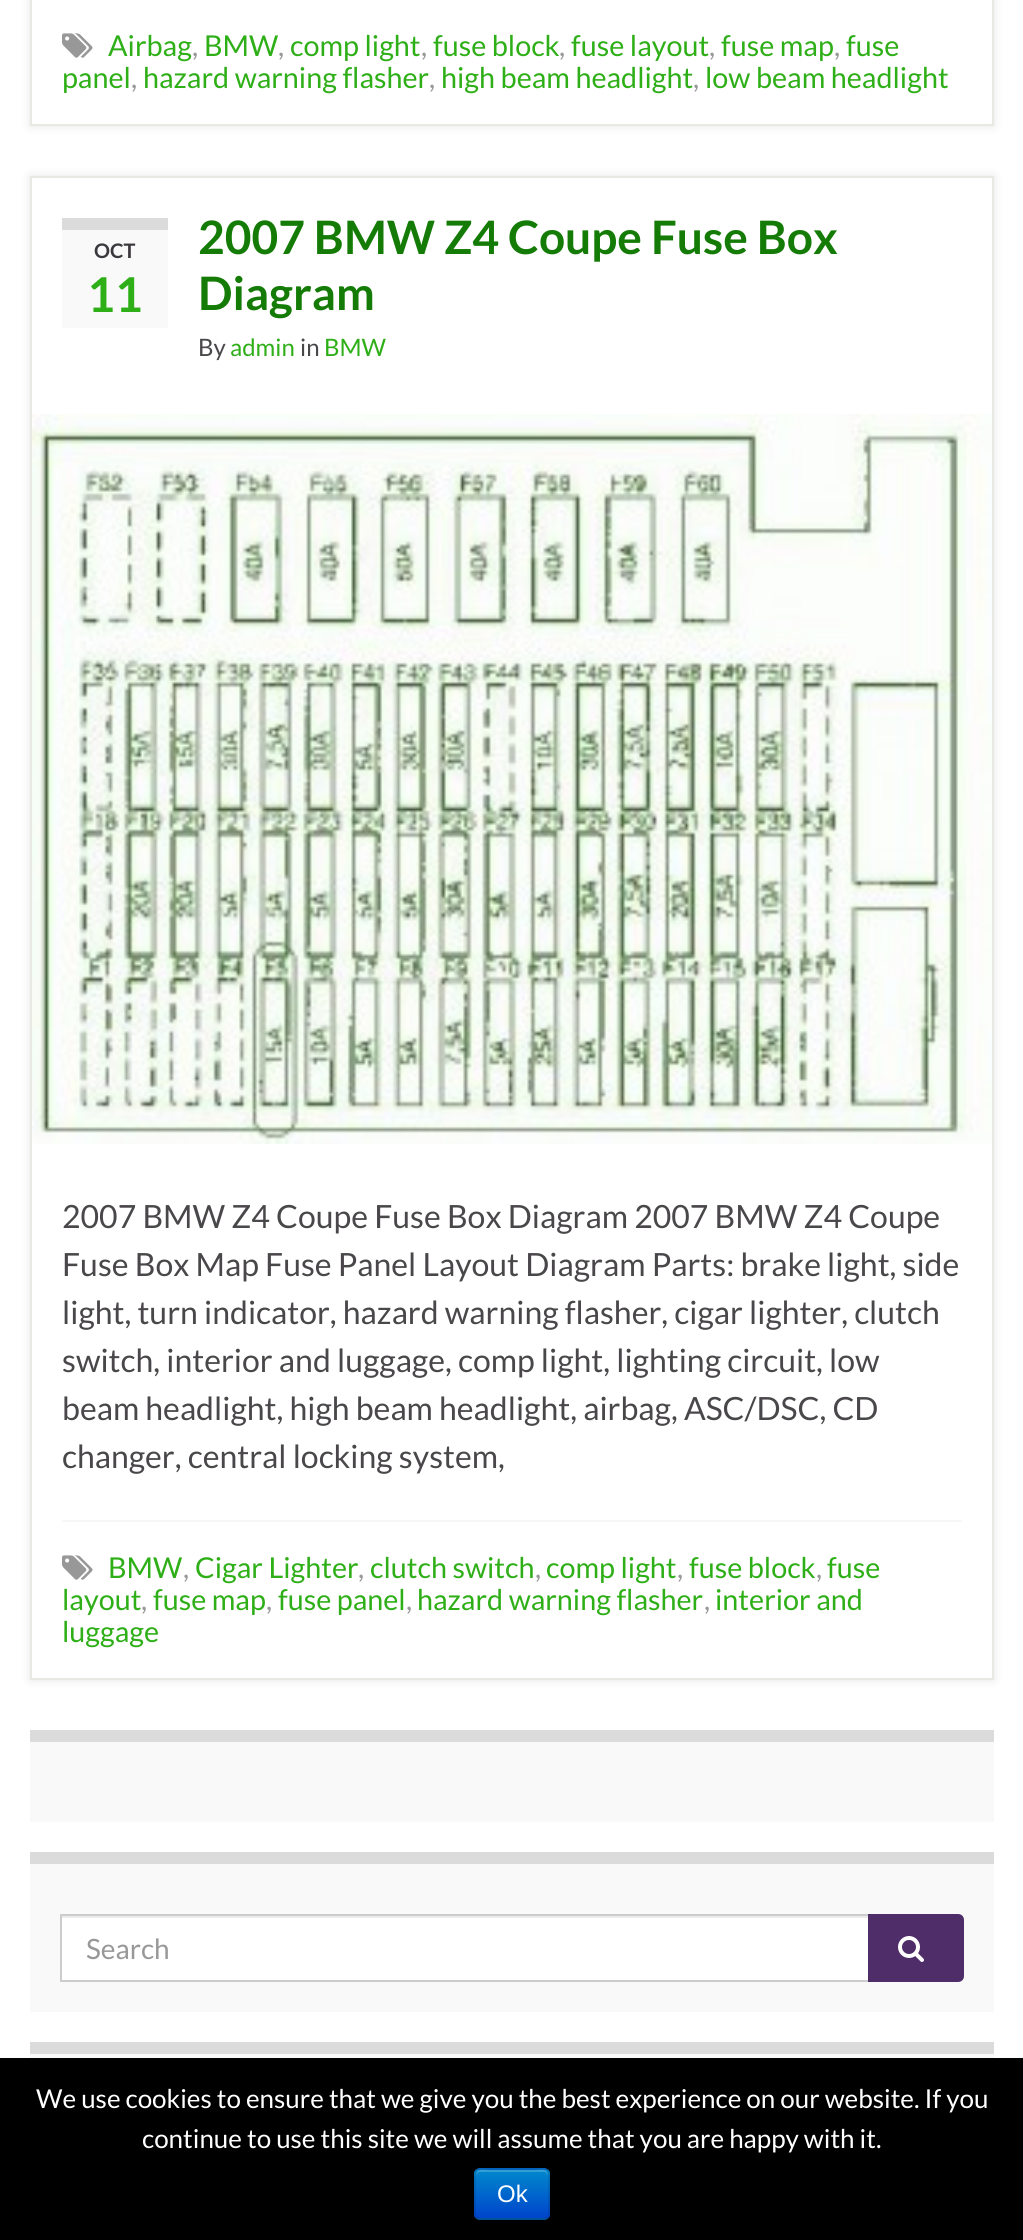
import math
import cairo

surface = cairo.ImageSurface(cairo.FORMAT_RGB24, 1023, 2240)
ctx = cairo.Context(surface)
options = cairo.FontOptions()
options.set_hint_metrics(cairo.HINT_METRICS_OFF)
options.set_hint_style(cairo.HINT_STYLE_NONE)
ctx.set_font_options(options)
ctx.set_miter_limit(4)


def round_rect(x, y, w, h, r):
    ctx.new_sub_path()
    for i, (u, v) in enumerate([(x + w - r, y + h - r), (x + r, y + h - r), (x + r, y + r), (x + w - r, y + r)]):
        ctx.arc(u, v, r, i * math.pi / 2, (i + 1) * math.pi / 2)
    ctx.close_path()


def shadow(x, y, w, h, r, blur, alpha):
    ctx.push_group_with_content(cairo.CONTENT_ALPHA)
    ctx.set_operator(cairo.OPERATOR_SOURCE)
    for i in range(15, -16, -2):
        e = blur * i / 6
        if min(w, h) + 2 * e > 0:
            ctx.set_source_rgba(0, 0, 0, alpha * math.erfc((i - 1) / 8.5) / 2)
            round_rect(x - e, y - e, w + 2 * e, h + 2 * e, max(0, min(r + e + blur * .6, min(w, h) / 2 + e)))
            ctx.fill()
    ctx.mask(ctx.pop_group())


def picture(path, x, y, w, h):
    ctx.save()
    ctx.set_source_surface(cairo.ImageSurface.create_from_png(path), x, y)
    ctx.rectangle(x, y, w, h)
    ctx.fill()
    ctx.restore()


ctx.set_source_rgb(1, 1, 1)
ctx.paint()
ctx.save()
ctx.set_fill_rule(cairo.FILL_RULE_EVEN_ODD)
ctx.new_path()
ctx.move_to(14, 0)
ctx.line_to(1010, 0)
ctx.line_to(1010, 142)
ctx.line_to(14, 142)
ctx.close_path()
ctx.move_to(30, -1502)
ctx.line_to(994, -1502)
ctx.line_to(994, 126)
ctx.line_to(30, 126)
ctx.close_path()
ctx.clip()
ctx.set_source_rgb(0, 0, 0)
shadow(30, -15, 964, 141, 0, 5, 0.1)
ctx.restore()
ctx.rectangle(31, -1, 962, 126)
ctx.set_source_rgb(0.914, 0.91, 0.89)
ctx.stroke()
picture("img1.png", 62, 33, 31, 25)
ctx.select_font_face("Lato")
ctx.set_font_size(28.75)
ctx.set_source_rgb(0.18, 0.686, 0.09)
ctx.move_to(108, 56)
ctx.show_text("Airbag")
ctx.set_source_rgb(0.596, 0.596, 0.596)
ctx.move_to(192, 56)
ctx.show_text(",")
ctx.set_source_rgb(0.18, 0.686, 0.09)
ctx.move_to(204, 56)
ctx.show_text("BMW")
ctx.set_source_rgb(0.596, 0.596, 0.596)
ctx.move_to(278, 56)
ctx.show_text(",")
ctx.set_source_rgb(0.18, 0.686, 0.09)
ctx.move_to(290, 56)
ctx.show_text("comp light")
ctx.set_source_rgb(0.596, 0.596, 0.596)
ctx.move_to(421, 56)
ctx.show_text(",")
ctx.set_source_rgb(0.18, 0.686, 0.09)
ctx.move_to(433, 56)
ctx.show_text("fuse block")
ctx.set_source_rgb(0.596, 0.596, 0.596)
ctx.move_to(559, 56)
ctx.show_text(",")
ctx.set_source_rgb(0.18, 0.686, 0.09)
ctx.move_to(571, 56)
ctx.show_text("fuse layout")
ctx.set_source_rgb(0.596, 0.596, 0.596)
ctx.move_to(709, 56)
ctx.show_text(",")
ctx.set_source_rgb(0.18, 0.686, 0.09)
ctx.move_to(721, 56)
ctx.show_text("fuse map")
ctx.set_source_rgb(0.596, 0.596, 0.596)
ctx.move_to(834, 56)
ctx.show_text(",")
ctx.set_source_rgb(0.18, 0.686, 0.09)
ctx.move_to(846, 56)
ctx.show_text("fuse")
ctx.move_to(62, 88)
ctx.show_text("panel")
ctx.set_source_rgb(0.596, 0.596, 0.596)
ctx.move_to(131, 88)
ctx.show_text(",")
ctx.set_source_rgb(0.18, 0.686, 0.09)
ctx.move_to(143, 88)
ctx.show_text("hazard warning flasher")
ctx.set_source_rgb(0.596, 0.596, 0.596)
ctx.move_to(429, 88)
ctx.show_text(",")
ctx.set_source_rgb(0.18, 0.686, 0.09)
ctx.move_to(441, 88)
ctx.show_text("high beam headlight")
ctx.set_source_rgb(0.596, 0.596, 0.596)
ctx.move_to(693, 88)
ctx.show_text(",")
ctx.set_source_rgb(0.18, 0.686, 0.09)
ctx.move_to(705, 88)
ctx.show_text("low beam headlight")
ctx.save()
ctx.set_fill_rule(cairo.FILL_RULE_EVEN_ODD)
ctx.new_path()
ctx.move_to(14, 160)
ctx.line_to(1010, 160)
ctx.line_to(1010, 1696)
ctx.line_to(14, 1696)
ctx.close_path()
ctx.move_to(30, 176)
ctx.line_to(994, 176)
ctx.line_to(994, 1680)
ctx.line_to(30, 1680)
ctx.close_path()
ctx.clip()
ctx.set_source_rgb(0, 0, 0)
shadow(30, 176, 964, 1504, 0, 5, 0.1)
ctx.restore()
ctx.rectangle(31, 177, 962, 1502)
ctx.set_source_rgb(0.914, 0.91, 0.89)
ctx.stroke()
ctx.set_source_rgb(0.976, 0.976, 0.976)
ctx.rectangle(62, 230, 106, 98)
ctx.fill()
ctx.set_source_rgb(0.859, 0.859, 0.859)
ctx.rectangle(62, 218, 106, 12)
ctx.fill()
ctx.select_font_face("Lato", cairo.FONT_SLANT_NORMAL, cairo.FONT_WEIGHT_BOLD)
ctx.set_font_size(20)
ctx.set_source_rgb(0.231, 0.22, 0.239)
ctx.move_to(94, 258)
ctx.show_text("OCT")
ctx.set_font_size(48)
ctx.set_source_rgb(0.18, 0.686, 0.09)
ctx.move_to(87, 312)
ctx.show_text("11")
ctx.set_font_size(46.1)
ctx.set_source_rgb(0.082, 0.486, 0.027)
ctx.move_to(198, 254)
ctx.show_text("2007 BMW Z4 Coupe Fuse Box")
ctx.move_to(198, 310)
ctx.show_text("Diagram")
ctx.select_font_face("Lato")
ctx.set_font_size(24)
ctx.set_source_rgb(0.29, 0.278, 0.294)
ctx.move_to(198, 356)
ctx.show_text("By")
ctx.set_source_rgb(0.18, 0.686, 0.09)
ctx.move_to(230, 356)
ctx.show_text("admin")
ctx.set_source_rgb(0.29, 0.278, 0.294)
ctx.move_to(300, 356)
ctx.show_text("in")
ctx.set_source_rgb(0.18, 0.686, 0.09)
ctx.move_to(324, 356)
ctx.show_text("BMW")
picture("img2.png", 32, 414, 960, 730)
ctx.set_font_size(32)
ctx.set_source_rgb(0.29, 0.278, 0.294)
ctx.move_to(62, 1228)
ctx.show_text("2007 BMW Z4 Coupe Fuse Box Diagram 2007 BMW Z4 Coupe")
ctx.move_to(62, 1276)
ctx.show_text("Fuse Box Map Fuse Panel Layout Diagram Parts: brake light, side")
ctx.move_to(62, 1324)
ctx.show_text("light, turn indicator, hazard warning flasher, cigar lighter, clutch")
ctx.move_to(62, 1372)
ctx.show_text("switch, interior and luggage, comp light, lighting circuit, low")
ctx.move_to(62, 1420)
ctx.show_text("beam headlight, high beam headlight, airbag, ASC/DSC, CD")
ctx.move_to(62, 1468)
ctx.show_text("changer, central locking system,")
ctx.set_source_rgb(0.961, 0.961, 0.961)
ctx.rectangle(62, 1520, 900, 2)
ctx.fill()
picture("img1.png", 62, 1555, 31, 25)
ctx.set_font_size(28.75)
ctx.set_source_rgb(0.18, 0.686, 0.09)
ctx.move_to(108, 1578)
ctx.show_text("BMW")
ctx.set_source_rgb(0.596, 0.596, 0.596)
ctx.move_to(183, 1578)
ctx.show_text(",")
ctx.set_source_rgb(0.18, 0.686, 0.09)
ctx.move_to(195, 1578)
ctx.show_text("Cigar Lighter")
ctx.set_source_rgb(0.596, 0.596, 0.596)
ctx.move_to(358, 1578)
ctx.show_text(",")
ctx.set_source_rgb(0.18, 0.686, 0.09)
ctx.move_to(370, 1578)
ctx.show_text("clutch switch")
ctx.set_source_rgb(0.596, 0.596, 0.596)
ctx.move_to(535, 1578)
ctx.show_text(",")
ctx.set_source_rgb(0.18, 0.686, 0.09)
ctx.move_to(546, 1578)
ctx.show_text("comp light")
ctx.set_source_rgb(0.596, 0.596, 0.596)
ctx.move_to(677, 1578)
ctx.show_text(",")
ctx.set_source_rgb(0.18, 0.686, 0.09)
ctx.move_to(689, 1578)
ctx.show_text("fuse block")
ctx.set_source_rgb(0.596, 0.596, 0.596)
ctx.move_to(816, 1578)
ctx.show_text(",")
ctx.set_source_rgb(0.18, 0.686, 0.09)
ctx.move_to(827, 1578)
ctx.show_text("fuse")
ctx.move_to(62, 1610)
ctx.show_text("layout")
ctx.set_source_rgb(0.596, 0.596, 0.596)
ctx.move_to(141, 1610)
ctx.show_text(",")
ctx.set_source_rgb(0.18, 0.686, 0.09)
ctx.move_to(153, 1610)
ctx.show_text("fuse map")
ctx.set_source_rgb(0.596, 0.596, 0.596)
ctx.move_to(266, 1610)
ctx.show_text(",")
ctx.set_source_rgb(0.18, 0.686, 0.09)
ctx.move_to(278, 1610)
ctx.show_text("fuse panel")
ctx.set_source_rgb(0.596, 0.596, 0.596)
ctx.move_to(406, 1610)
ctx.show_text(",")
ctx.set_source_rgb(0.18, 0.686, 0.09)
ctx.move_to(417, 1610)
ctx.show_text("hazard warning flasher")
ctx.set_source_rgb(0.596, 0.596, 0.596)
ctx.move_to(704, 1610)
ctx.show_text(",")
ctx.set_source_rgb(0.18, 0.686, 0.09)
ctx.move_to(715, 1610)
ctx.show_text("interior and")
ctx.move_to(62, 1642)
ctx.show_text("luggage")
ctx.set_source_rgb(0.976, 0.976, 0.976)
ctx.rectangle(30, 1742, 964, 80)
ctx.fill()
ctx.set_source_rgb(0.859, 0.859, 0.859)
ctx.rectangle(30, 1730, 964, 12)
ctx.fill()
ctx.set_source_rgb(0.976, 0.976, 0.976)
ctx.rectangle(30, 1864, 964, 148)
ctx.fill()
ctx.set_source_rgb(0.859, 0.859, 0.859)
ctx.rectangle(30, 1852, 964, 12)
ctx.fill()
ctx.set_source_rgb(1, 1, 1)
ctx.rectangle(62, 1918, 806, 62)
ctx.fill()
ctx.set_source_rgb(0.925, 0.925, 0.925)
ctx.rectangle(62, 1916, 806, 2)
ctx.fill()
ctx.rectangle(61, 1915, 808, 66)
ctx.set_source_rgb(0.8, 0.8, 0.8)
ctx.stroke()
ctx.set_font_size(28)
ctx.set_source_rgb(0.596, 0.596, 0.596)
ctx.move_to(86, 1959)
ctx.show_text("Search")
ctx.set_source_rgb(0.31, 0.176, 0.412)
ctx.new_path()
ctx.move_to(868, 1914)
ctx.line_to(958, 1914)
ctx.curve_to(961.5, 1914, 964, 1916.5, 964, 1920)
ctx.line_to(964, 1976)
ctx.curve_to(964, 1979.5, 961.5, 1982, 958, 1982)
ctx.line_to(868, 1982)
ctx.close_path()
ctx.fill()
picture("img3.png", 898, 1936, 26, 26)
ctx.set_source_rgb(0.976, 0.976, 0.976)
ctx.rectangle(30, 2054, 964, 4)
ctx.fill()
ctx.set_source_rgb(0.859, 0.859, 0.859)
ctx.rectangle(30, 2042, 964, 12)
ctx.fill()
ctx.set_source_rgb(0, 0, 0)
ctx.rectangle(0, 2058, 1023, 182)
ctx.fill()
ctx.set_font_size(26)
ctx.set_source_rgb(1, 1, 1)
ctx.move_to(36, 2108)
ctx.show_text("We use cookies to ensure that we give you the best experience on our website. If you")
ctx.move_to(142, 2148)
ctx.show_text("continue to use this site we will assume that you are happy with it.")
ctx.set_source_rgb(0, 0.427, 0.8)
round_rect(474, 2168, 76, 52, 6)
ctx.fill()
ctx.save()
round_rect(474, 2168, 76, 52, 6)
ctx.clip()
gradient = cairo.LinearGradient(512, 2170, 512, 2218)
gradient.add_color_stop_rgba(0, 0, 0.533, 0.8, 1)
gradient.add_color_stop_rgba(1, 0, 0.267, 0.8, 1)
ctx.set_source(gradient)
ctx.rectangle(474, 2170, 76, 48)
ctx.fill()
ctx.restore()
ctx.set_source_rgba(1, 1, 1, 0.2)
ctx.new_path()
ctx.move_to(480, 2172)
ctx.line_to(544, 2172)
ctx.curve_to(546, 2172, 548, 2174, 548, 2176)
ctx.curve_to(548, 2167, 541, 2170, 533, 2170)
ctx.line_to(491, 2170)
ctx.curve_to(483, 2170, 476, 2167, 476, 2176)
ctx.curve_to(476, 2174, 478, 2172, 480, 2172)
ctx.close_path()
ctx.fill()
ctx.new_path()
ctx.move_to(547.5, 2217.5)
ctx.curve_to(546.5, 2218.5, 545.5, 2219, 544, 2219)
ctx.line_to(480, 2219)
ctx.curve_to(478.5, 2219, 477.5, 2218.5, 476.5, 2217.5)
ctx.set_source_rgba(0, 0, 0, 0.25)
ctx.stroke()
ctx.new_path()
ctx.move_to(476.5, 2217.5)
ctx.curve_to(475.5, 2216.5, 475, 2215.5, 475, 2214)
ctx.line_to(475, 2174)
ctx.curve_to(475, 2172.5, 475.5, 2171.5, 476.5, 2170.5)
ctx.curve_to(477.5, 2169.5, 478.5, 2169, 480, 2169)
ctx.line_to(544, 2169)
ctx.curve_to(545.5, 2169, 546.5, 2169.5, 547.5, 2170.5)
ctx.curve_to(548.5, 2171.5, 549, 2172.5, 549, 2174)
ctx.line_to(549, 2214)
ctx.curve_to(549, 2215.5, 548.5, 2216.5, 547.5, 2217.5)
ctx.set_source_rgba(0, 0, 0, 0.1)
ctx.stroke()
ctx.select_font_face("Liberation Sans")
ctx.set_font_size(24)
ctx.set_source_rgb(1, 1, 1)
ctx.move_to(497, 2202)
ctx.show_text("Ok")
surface.write_to_png("page.png")
